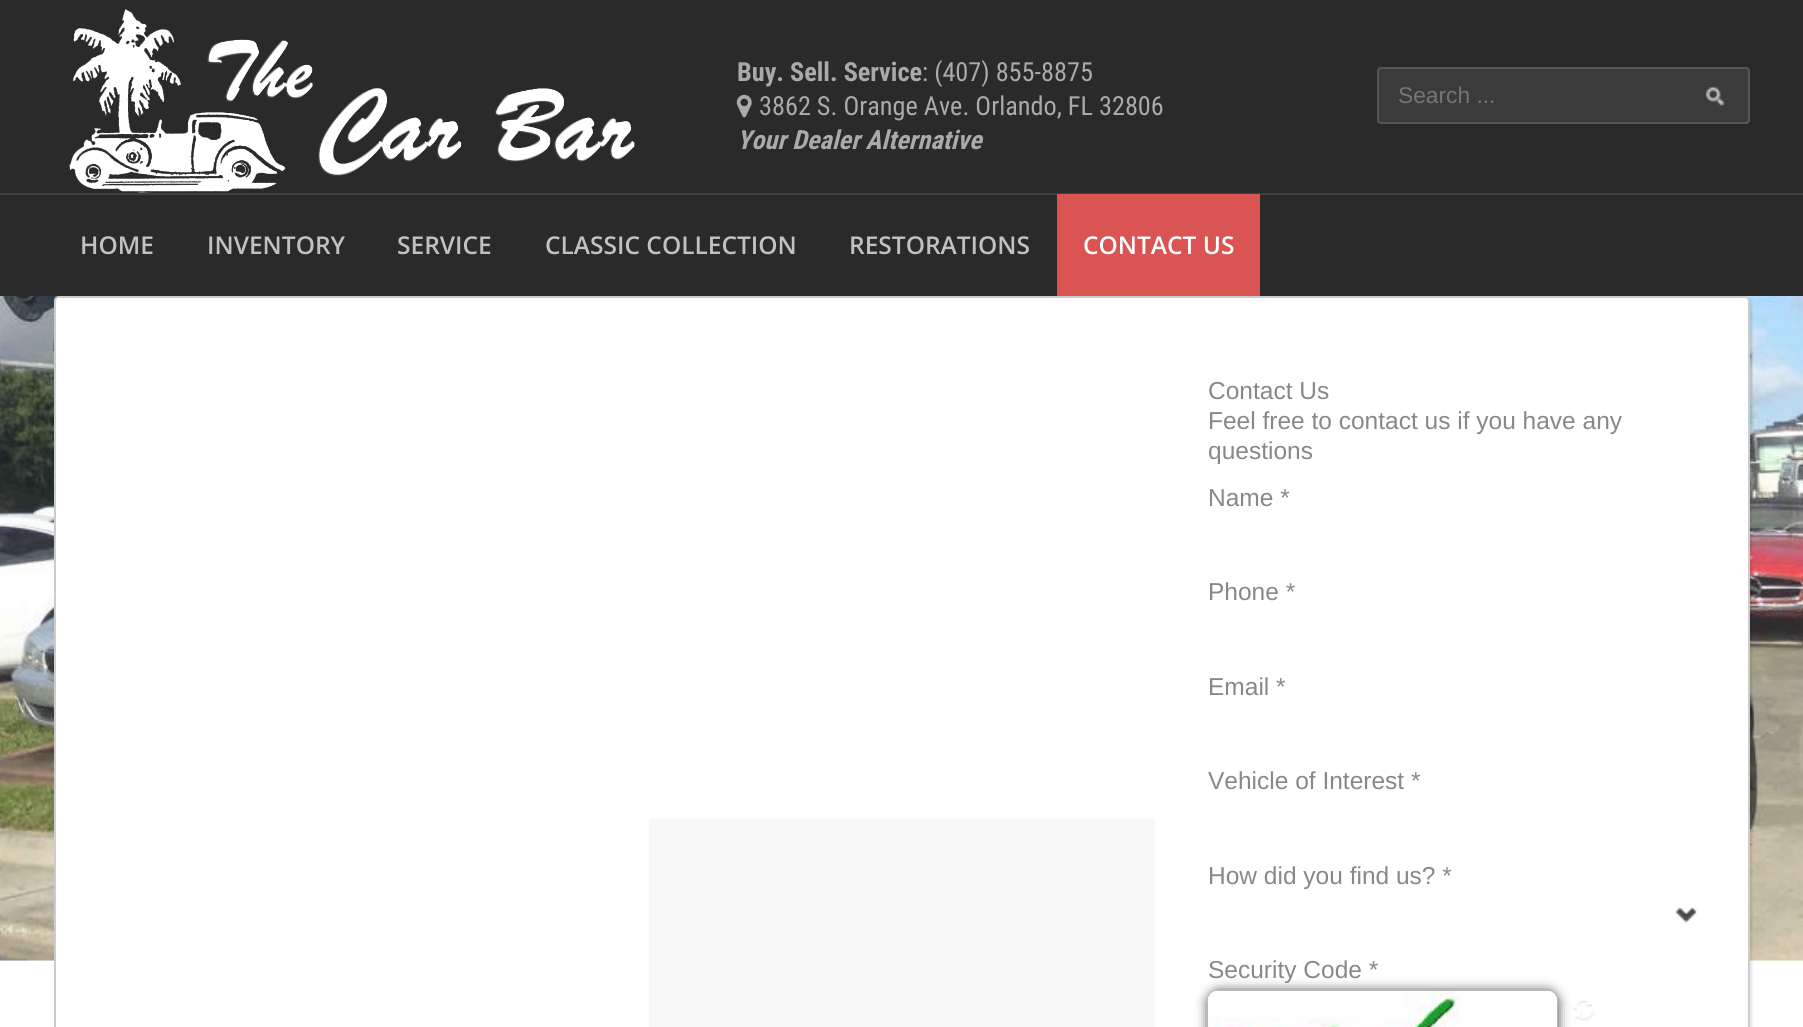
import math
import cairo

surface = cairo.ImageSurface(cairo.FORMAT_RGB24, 1803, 1027)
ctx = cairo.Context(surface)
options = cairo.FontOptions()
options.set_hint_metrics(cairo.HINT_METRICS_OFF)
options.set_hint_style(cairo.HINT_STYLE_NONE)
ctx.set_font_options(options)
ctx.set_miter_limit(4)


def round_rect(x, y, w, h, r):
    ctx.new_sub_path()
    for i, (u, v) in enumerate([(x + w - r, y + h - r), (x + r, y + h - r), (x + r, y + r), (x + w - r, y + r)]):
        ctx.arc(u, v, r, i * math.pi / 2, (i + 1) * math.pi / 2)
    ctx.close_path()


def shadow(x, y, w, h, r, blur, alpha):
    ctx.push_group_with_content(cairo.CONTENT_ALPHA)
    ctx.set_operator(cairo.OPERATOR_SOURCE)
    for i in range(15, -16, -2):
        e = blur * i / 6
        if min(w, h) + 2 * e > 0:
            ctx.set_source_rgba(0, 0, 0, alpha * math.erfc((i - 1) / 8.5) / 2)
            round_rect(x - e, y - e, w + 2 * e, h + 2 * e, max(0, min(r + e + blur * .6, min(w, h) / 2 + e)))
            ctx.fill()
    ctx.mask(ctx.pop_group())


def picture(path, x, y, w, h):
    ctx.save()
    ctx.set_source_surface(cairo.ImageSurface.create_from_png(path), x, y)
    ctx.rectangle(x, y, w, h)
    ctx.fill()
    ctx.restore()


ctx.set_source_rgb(1, 1, 1)
ctx.paint()
picture("img4.png", 0, 296, 1803, 665)
ctx.set_source_rgb(0, 0, 0)
shadow(56, 298, 1696, 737, 5, 1, 0.1)
ctx.set_source_rgb(0.165, 0.165, 0.165)
ctx.rectangle(0, 0, 1803, 296)
ctx.fill()
picture("img1.png", 54, 0, 581, 193)
ctx.select_font_face("Roboto Condensed", cairo.FONT_SLANT_NORMAL, cairo.FONT_WEIGHT_BOLD)
ctx.set_font_size(26.25)
ctx.set_source_rgb(0.667, 0.667, 0.667)
ctx.move_to(737, 81)
ctx.show_text("Buy. Sell. Service")
ctx.select_font_face("Roboto Condensed")
ctx.move_to(922, 81)
ctx.show_text(": (407) 855-8875")
picture("img2.png", 736, 94, 16, 24)
ctx.move_to(759, 115)
ctx.show_text("3862 S. Orange Ave. Orlando, FL 32806")
ctx.select_font_face("Roboto Condensed", cairo.FONT_SLANT_ITALIC, cairo.FONT_WEIGHT_BOLD)
ctx.move_to(737, 149)
ctx.show_text("Your Dealer Alternative")
ctx.set_source_rgb(0.231, 0.231, 0.231)
round_rect(1377, 67, 373, 57, 4)
ctx.fill()
picture("img3.png", 1705, 87, 20, 19)
round_rect(1378, 68, 371, 55, 3)
ctx.set_source_rgb(0.333, 0.333, 0.333)
ctx.stroke()
ctx.select_font_face("Liberation Sans")
ctx.set_font_size(22.75)
ctx.set_source_rgb(0.459, 0.459, 0.459)
ctx.move_to(1398, 103)
ctx.show_text("Search ...")
ctx.set_source_rgb(0.251, 0.251, 0.251)
ctx.rectangle(0, 193, 1803, 2)
ctx.fill()
ctx.select_font_face("Open Sans SemiBold")
ctx.set_font_size(24.5)
ctx.set_source_rgb(0.757, 0.757, 0.757)
ctx.move_to(80, 254)
ctx.show_text("HOME")
ctx.move_to(207, 254)
ctx.show_text("INVENTORY")
ctx.move_to(397, 254)
ctx.show_text("SERVICE")
ctx.move_to(545, 254)
ctx.show_text("CLASSIC COLLECTION")
ctx.move_to(849, 254)
ctx.show_text("RESTORATIONS")
ctx.set_source_rgb(0.855, 0.329, 0.329)
ctx.rectangle(1057, 194, 203, 102)
ctx.fill()
ctx.set_source_rgb(1, 1, 1)
ctx.move_to(1083, 254)
ctx.show_text("CONTACT US")
round_rect(54, 296, 1696, 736, 5)
ctx.fill()
round_rect(55, 297, 1694, 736, 4)
ctx.set_source_rgba(0, 0, 0, 0.2)
ctx.stroke()
ctx.set_source_rgb(0.969, 0.969, 0.969)
ctx.rectangle(649, 819, 506, 208)
ctx.fill()
ctx.select_font_face("Liberation Sans")
ctx.set_source_rgb(0.533, 0.533, 0.533)
ctx.move_to(1208, 399)
ctx.show_text("Contact Us")
ctx.move_to(1208, 429)
ctx.show_text("Feel free to contact us if you have any")
ctx.move_to(1208, 459)
ctx.show_text("questions")
ctx.move_to(1208, 506)
ctx.show_text("Name *")
ctx.move_to(1208, 600)
ctx.show_text("Phone *")
ctx.move_to(1208, 695)
ctx.show_text("Email *")
ctx.move_to(1208, 789)
ctx.show_text("Vehicle of Interest *")
ctx.move_to(1208, 884)
ctx.show_text("How did you find us? *")
picture("img5.png", 1675, 907, 22, 16)
ctx.set_source_rgb(0, 0, 0)
shadow(1208, 991, 350, 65, 11, 6, 0.74)
ctx.set_source_rgb(0.533, 0.533, 0.533)
ctx.move_to(1208, 978)
ctx.show_text("Security Code *")
picture("img6.png", 1207, 990, 351, 37)
picture("img7.png", 1573, 1000, 22, 21)
surface.write_to_png("page.png")
